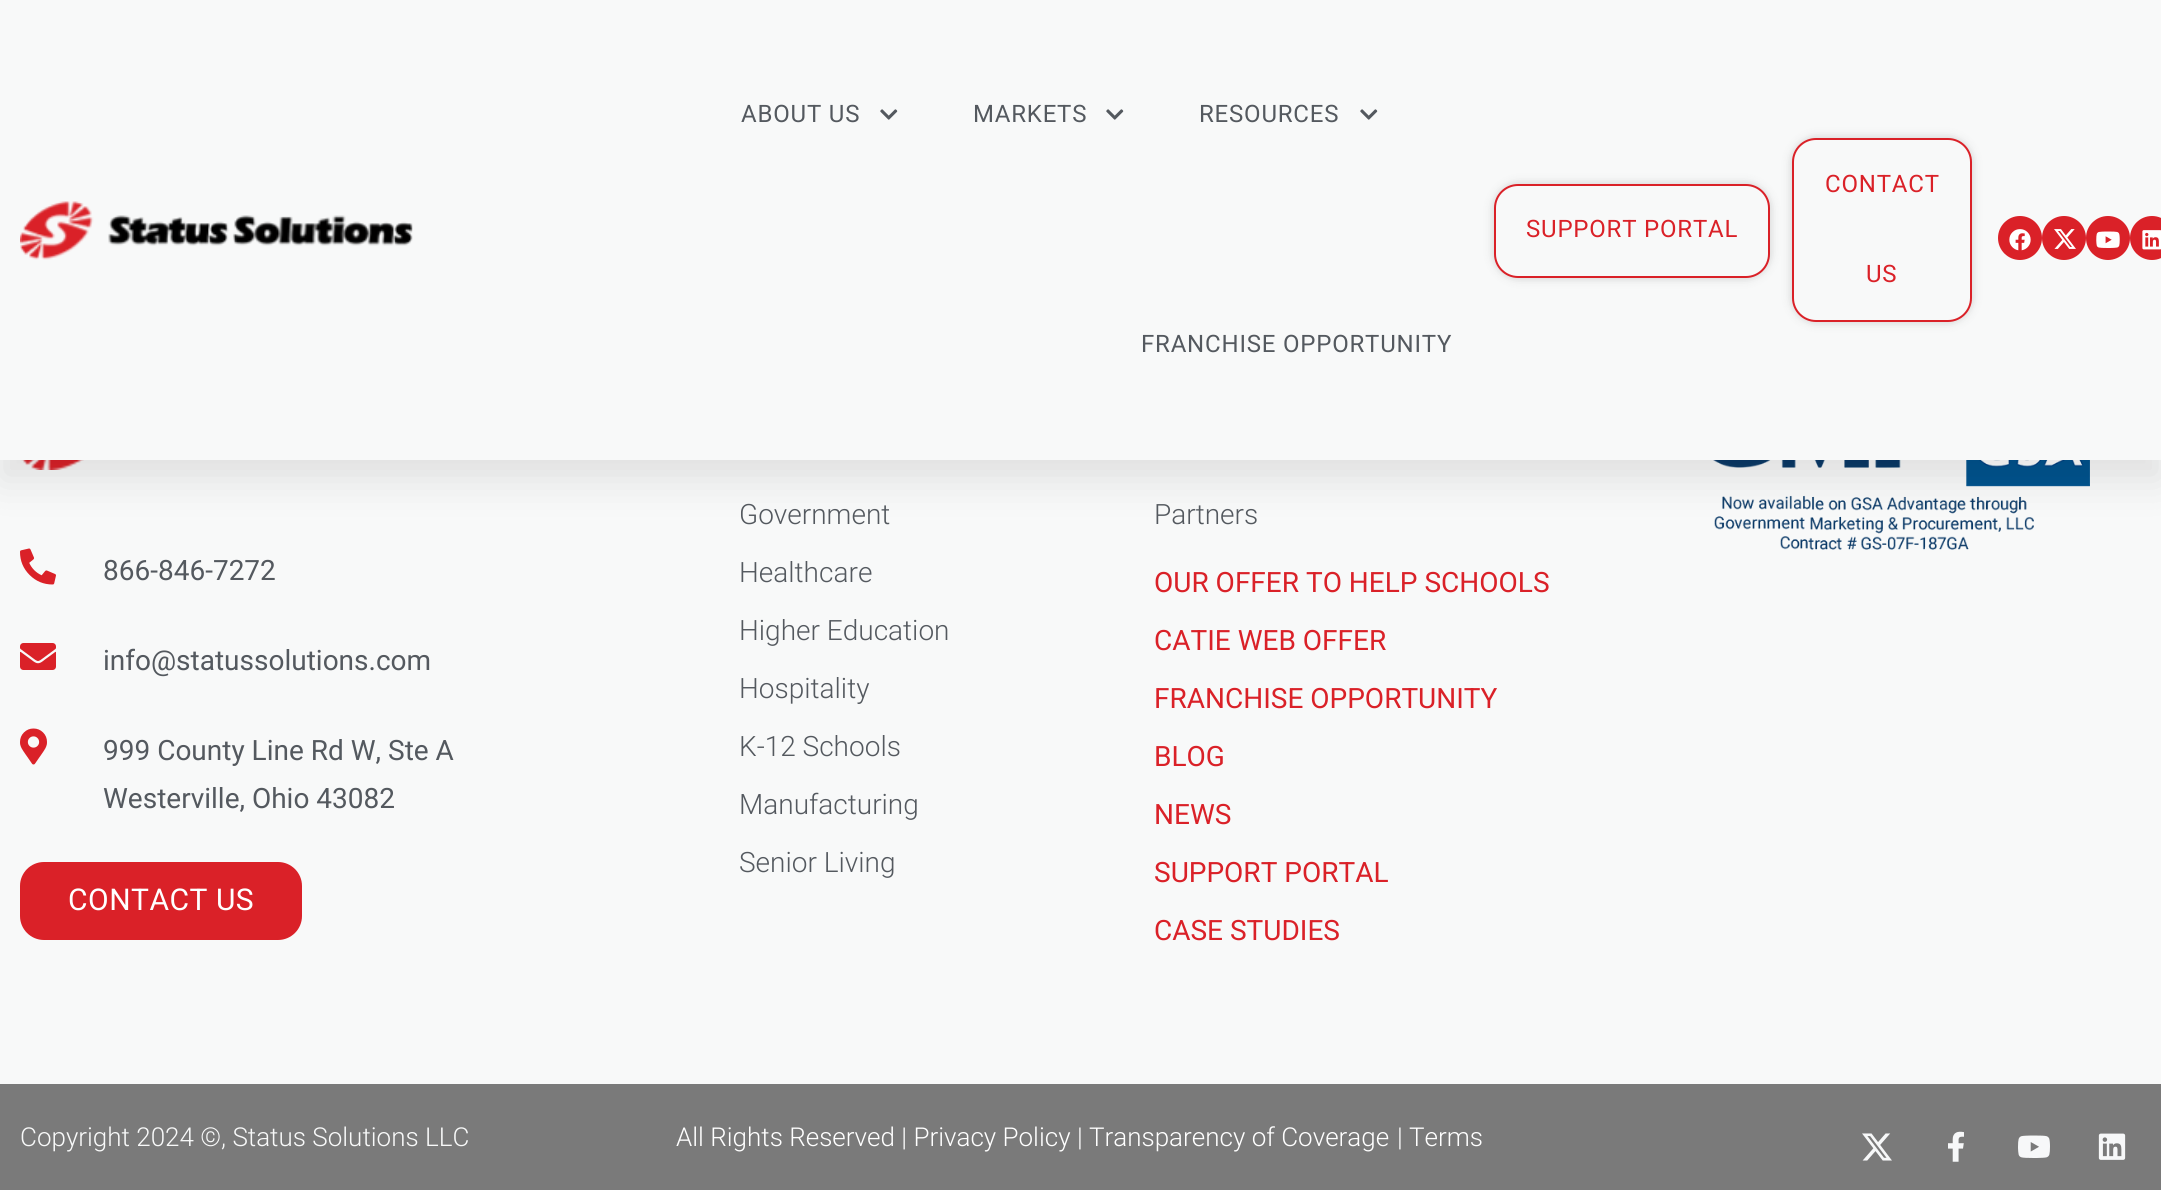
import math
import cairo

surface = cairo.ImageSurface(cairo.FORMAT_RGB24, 2161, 1190)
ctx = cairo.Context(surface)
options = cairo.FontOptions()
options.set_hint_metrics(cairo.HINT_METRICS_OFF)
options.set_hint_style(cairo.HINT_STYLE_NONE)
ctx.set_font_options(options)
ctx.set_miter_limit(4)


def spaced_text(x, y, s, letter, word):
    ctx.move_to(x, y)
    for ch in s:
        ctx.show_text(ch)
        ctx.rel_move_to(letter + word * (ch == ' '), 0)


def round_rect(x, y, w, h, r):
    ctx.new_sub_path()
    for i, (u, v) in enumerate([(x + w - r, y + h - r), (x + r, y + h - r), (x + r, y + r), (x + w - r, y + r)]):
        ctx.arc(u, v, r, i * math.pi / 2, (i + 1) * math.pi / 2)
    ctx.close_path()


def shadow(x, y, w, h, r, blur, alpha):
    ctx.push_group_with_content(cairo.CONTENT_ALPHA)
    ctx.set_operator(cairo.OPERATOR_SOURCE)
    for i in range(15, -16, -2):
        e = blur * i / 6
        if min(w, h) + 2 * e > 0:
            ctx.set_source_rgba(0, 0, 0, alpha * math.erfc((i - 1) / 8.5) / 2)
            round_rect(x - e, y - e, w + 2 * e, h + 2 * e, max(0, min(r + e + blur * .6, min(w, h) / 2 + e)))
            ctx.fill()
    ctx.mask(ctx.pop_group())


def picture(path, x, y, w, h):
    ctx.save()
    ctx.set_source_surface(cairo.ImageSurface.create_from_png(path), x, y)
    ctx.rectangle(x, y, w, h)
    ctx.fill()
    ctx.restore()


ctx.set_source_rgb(0.969, 0.973, 0.976)
ctx.paint()
picture("img7.png", 21, 460, 63, 10)
picture("img11.png", 1713, 460, 377, 90)
ctx.set_source_rgb(0, 0, 0)
shadow(0, 20, 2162, 460, 0, 20, 0.1)
ctx.set_source_rgb(0.969, 0.973, 0.976)
ctx.rectangle(0, 0, 2161, 460)
ctx.fill()
picture("img1.png", 20, 201, 393, 59)
ctx.select_font_face("Roboto")
ctx.set_font_size(24)
ctx.set_source_rgb(0.329, 0.349, 0.373)
spaced_text(741, 122, "ABOUT US", 0.8, 0)
picture("img2.png", 880, 109, 18, 11)
spaced_text(973, 122, "MARKETS", 0.8, 0)
picture("img2.png", 1106, 109, 18, 11)
spaced_text(1199, 122, "RESOURCES", 0.8, 0)
picture("img2.png", 1360, 109, 18, 11)
spaced_text(1141, 352, "FRANCHISE OPPORTUNITY", 0.8, 0)
ctx.set_source_rgb(0, 0, 0)
shadow(1494, 184, 276, 94, 24, 5, 0.17)
ctx.set_source_rgb(0.969, 0.973, 0.976)
round_rect(1495, 185, 274, 92, 23)
ctx.fill_preserve()
ctx.set_source_rgb(0.855, 0.129, 0.157)
ctx.stroke()
spaced_text(1526, 237, "SUPPORT PORTAL", 0.8, 0)
ctx.set_source_rgb(0, 0, 0)
shadow(1792, 138, 180, 184, 24, 5, 0.17)
ctx.set_source_rgb(0.969, 0.973, 0.976)
round_rect(1793, 139, 178, 182, 23)
ctx.fill_preserve()
ctx.set_source_rgb(0.855, 0.129, 0.157)
ctx.stroke()
spaced_text(1825, 192, "CONTACT", 0.8, 0)
spaced_text(1866, 282, "US", 0.8, 0)
ctx.new_path()
ctx.arc(2020, 238, 22, 0, 2 * math.pi)
ctx.fill()
picture("img3.png", 2009, 229, 22, 22)
ctx.arc(2064, 238, 22, 0, 2 * math.pi)
ctx.fill()
picture("img4.png", 2054, 229, 22, 20)
ctx.arc(2108, 238, 22, 0, 2 * math.pi)
ctx.fill()
picture("img5.png", 2096, 231, 24, 17)
ctx.arc(2152, 238, 22, 0, 2 * math.pi)
ctx.fill()
picture("img6.png", 2142, 230, 19, 20)
picture("img8.png", 20, 548, 36, 37)
ctx.set_font_size(28)
ctx.set_source_rgb(0.329, 0.349, 0.373)
ctx.move_to(103, 580)
ctx.show_text("866-846-7272")
picture("img9.png", 20, 643, 36, 27)
ctx.move_to(103, 670)
ctx.show_text("info@statussolutions.com")
picture("img10.png", 20, 728, 27, 37)
ctx.move_to(103, 760)
ctx.show_text("999 County Line Rd W, Ste A")
ctx.move_to(103, 808)
ctx.show_text("Westerville, Ohio 43082")
ctx.set_source_rgb(0.855, 0.129, 0.157)
round_rect(20, 862, 282, 78, 24)
ctx.fill()
ctx.set_font_size(30)
ctx.set_source_rgb(1, 1, 1)
spaced_text(68, 910, "CONTACT US", 0.5, 0)
ctx.select_font_face("Roboto Light")
ctx.set_font_size(28)
ctx.set_source_rgb(0.329, 0.349, 0.373)
ctx.move_to(739, 524)
ctx.show_text("Government")
ctx.move_to(739, 582)
ctx.show_text("Healthcare")
ctx.move_to(739, 640)
ctx.show_text("Higher Education")
ctx.move_to(739, 698)
ctx.show_text("Hospitality")
ctx.move_to(739, 756)
ctx.show_text("K-12 Schools")
ctx.move_to(739, 814)
ctx.show_text("Manufacturing")
ctx.move_to(739, 872)
ctx.show_text("Senior Living")
ctx.move_to(1154, 524)
ctx.show_text("Partners")
ctx.select_font_face("Roboto")
ctx.set_source_rgb(0.855, 0.129, 0.157)
ctx.move_to(1154, 592)
ctx.show_text("OUR OFFER TO HELP SCHOOLS")
ctx.move_to(1154, 650)
ctx.show_text("CATIE WEB OFFER")
ctx.move_to(1154, 708)
ctx.show_text("FRANCHISE OPPORTUNITY")
ctx.move_to(1154, 766)
ctx.show_text("BLOG")
ctx.move_to(1154, 824)
ctx.show_text("NEWS")
ctx.move_to(1154, 882)
ctx.show_text("SUPPORT PORTAL")
ctx.move_to(1154, 940)
ctx.show_text("CASE STUDIES")
ctx.set_source_rgb(0.478, 0.478, 0.478)
ctx.rectangle(0, 1084, 2161, 106)
ctx.fill()
ctx.select_font_face("Roboto Light")
ctx.set_font_size(26)
ctx.set_source_rgb(0.969, 0.973, 0.976)
ctx.move_to(20, 1146)
ctx.show_text("Copyright 2024 ©, Status Solutions LLC")
ctx.set_source_rgb(1, 1, 1)
ctx.move_to(676, 1146)
ctx.show_text("All Rights Reserved | Privacy Policy | Transparency of Coverage")
ctx.move_to(1397, 1146)
ctx.show_text("| Terms")
picture("img12.png", 1862, 1133, 30, 28)
picture("img13.png", 1948, 1131, 16, 31)
picture("img14.png", 2018, 1135, 32, 23)
picture("img15.png", 2098, 1133, 28, 27)
surface.write_to_png("page.png")
